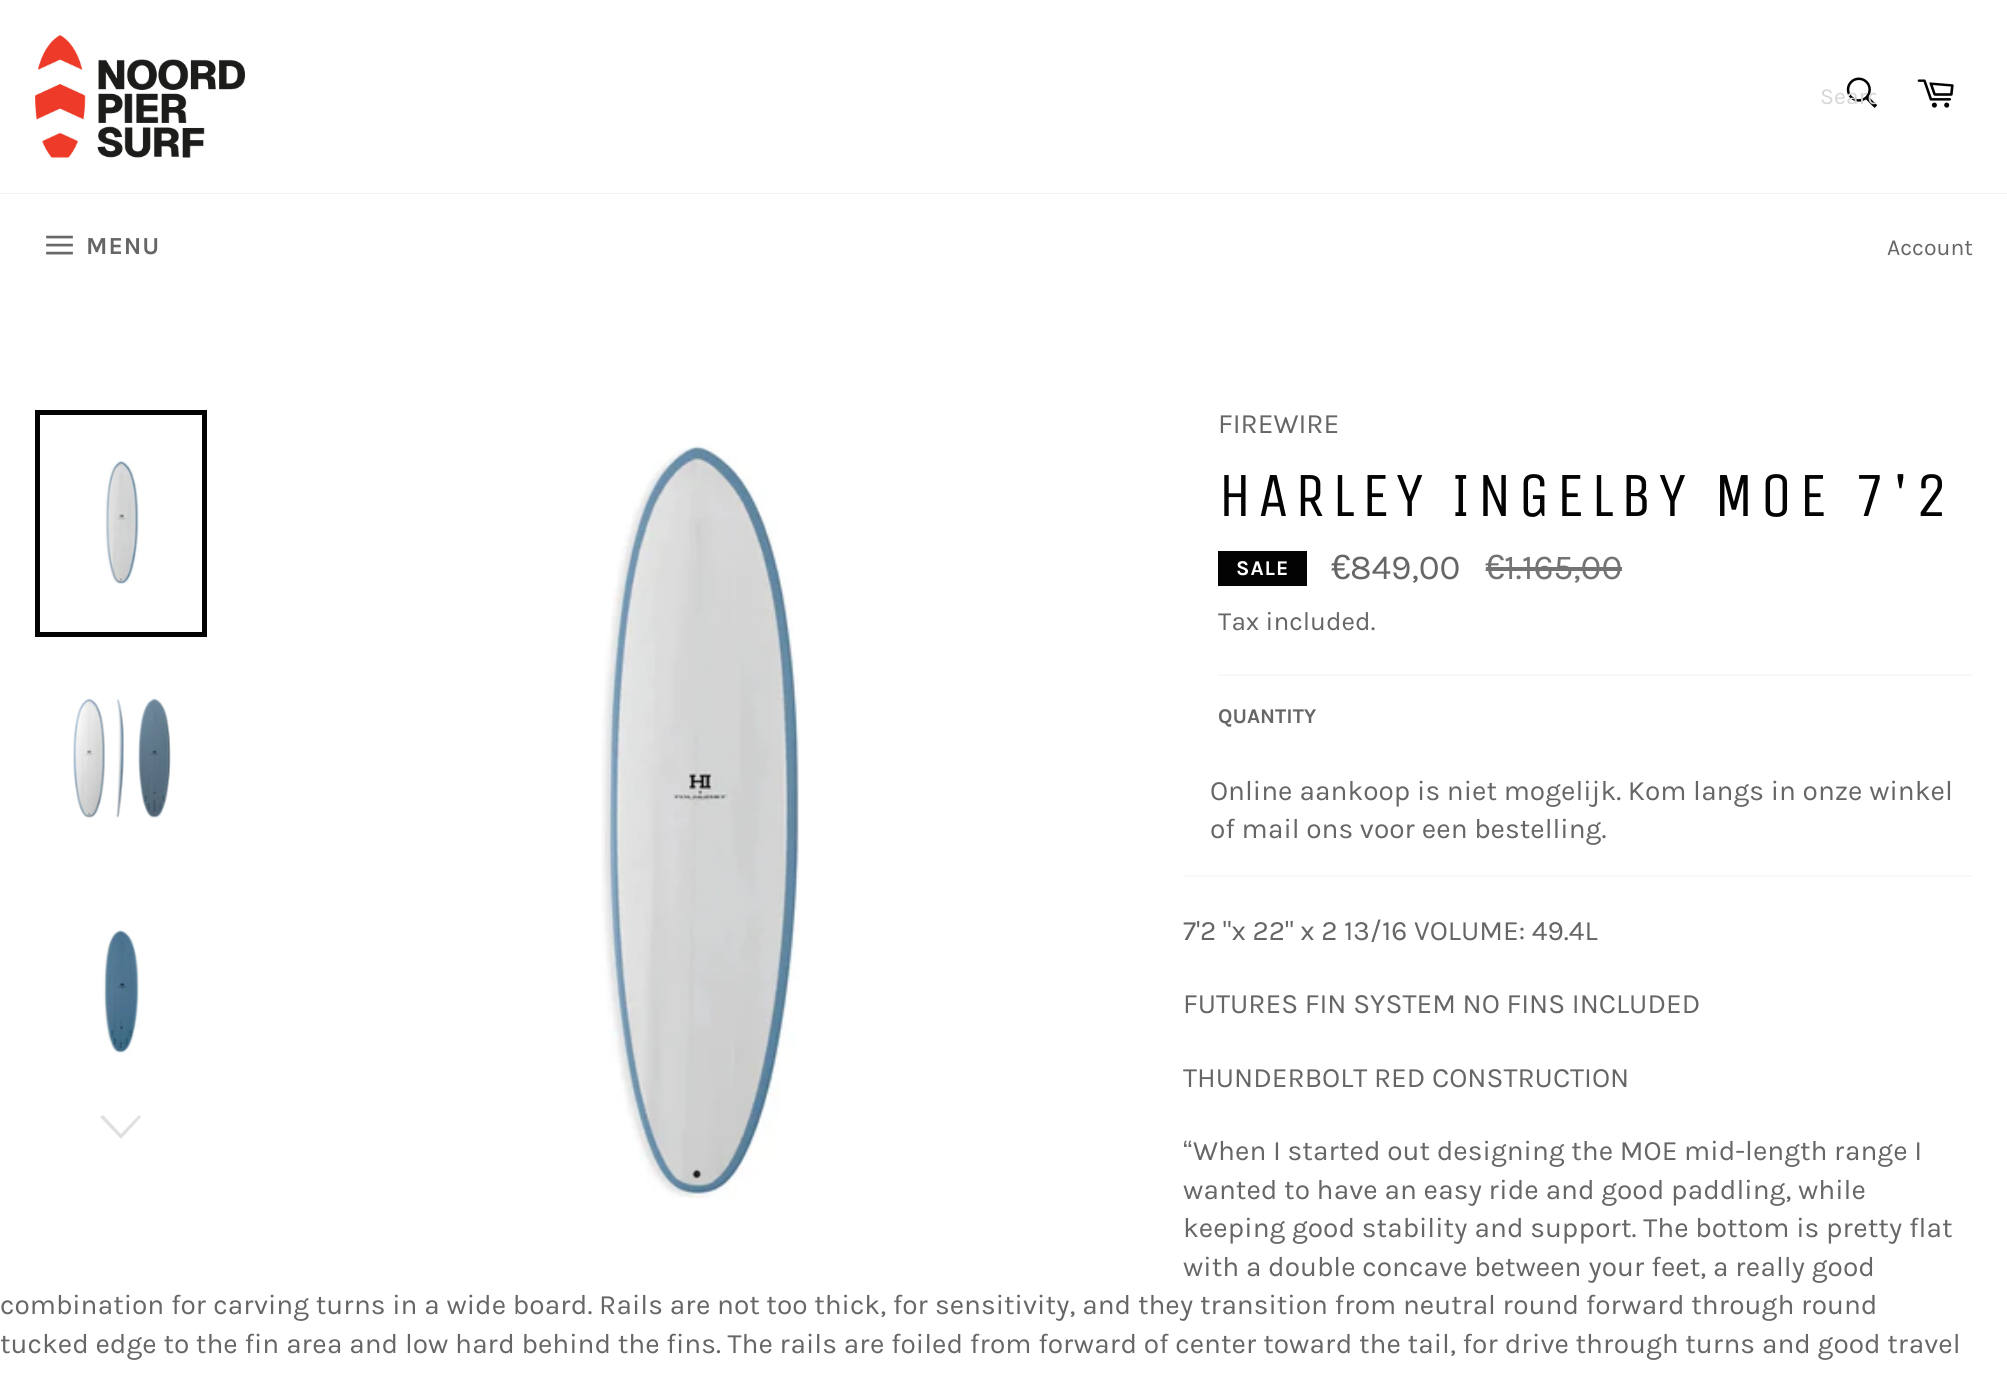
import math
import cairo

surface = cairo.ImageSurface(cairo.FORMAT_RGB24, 2007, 1384)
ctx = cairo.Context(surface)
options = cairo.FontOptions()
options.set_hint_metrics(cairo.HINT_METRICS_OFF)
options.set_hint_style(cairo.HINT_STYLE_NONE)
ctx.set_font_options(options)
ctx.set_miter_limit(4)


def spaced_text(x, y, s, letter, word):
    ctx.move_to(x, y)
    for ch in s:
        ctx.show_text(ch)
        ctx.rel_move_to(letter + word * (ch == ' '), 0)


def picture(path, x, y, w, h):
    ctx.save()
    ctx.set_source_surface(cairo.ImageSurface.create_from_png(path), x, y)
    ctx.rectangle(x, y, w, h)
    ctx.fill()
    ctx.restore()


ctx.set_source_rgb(1, 1, 1)
ctx.paint()
picture("img1.png", 35, 35, 210, 123)
picture("img2.png", 1846, 77, 32, 31)
ctx.save()
ctx.rectangle(1820, 82, 56, 27)
ctx.clip()
ctx.select_font_face("Karla")
ctx.set_font_size(23)
ctx.set_source_rgb(0.839, 0.839, 0.839)
ctx.move_to(1820, 104)
ctx.show_text("Searc")
ctx.restore()
picture("img3.png", 1917, 79, 37, 29)
ctx.set_source_rgb(0.949, 0.949, 0.949)
ctx.rectangle(0, 193, 2007, 1)
ctx.fill()
picture("img4.png", 46, 235, 27, 20)
ctx.select_font_face("Karla", cairo.FONT_SLANT_NORMAL, cairo.FONT_WEIGHT_BOLD)
ctx.set_font_size(24.5)
ctx.set_source_rgb(0.4, 0.4, 0.4)
spaced_text(86, 254, "MENU", 1, 0)
ctx.select_font_face("Karla")
ctx.set_font_size(23)
ctx.move_to(1887, 255)
ctx.show_text("Account")
picture("img5.png", 105, 461, 34, 124)
ctx.rectangle(37.5, 412.5, 167, 222)
ctx.set_source_rgb(0.012, 0.012, 0.012)
ctx.set_line_width(5)
ctx.stroke()
picture("img6.png", 73, 698, 98, 120)
picture("img7.png", 103, 930, 37, 124)
ctx.set_source_rgb(0.878, 0.878, 0.878)
ctx.new_path()
ctx.move_to(139, 1115)
ctx.line_to(141, 1117)
ctx.line_to(121, 1139)
ctx.line_to(100, 1117)
ctx.line_to(103, 1115)
ctx.line_to(121, 1134)
ctx.close_path()
ctx.fill()
picture("img8.png", 601, 442, 199, 757)
ctx.set_font_size(28)
ctx.set_source_rgb(0.4, 0.4, 0.4)
ctx.move_to(1218, 433)
ctx.show_text("FIREWIRE")
ctx.select_font_face("Unica One")
ctx.set_font_size(63)
ctx.set_source_rgb(0.012, 0.012, 0.012)
spaced_text(1218, 516, "HARLEY INGELBY MOE 7'2", 6.3, 0)
ctx.rectangle(1218, 551, 89, 35)
ctx.fill()
ctx.select_font_face("Karla", cairo.FONT_SLANT_NORMAL, cairo.FONT_WEIGHT_BOLD)
ctx.set_font_size(21)
ctx.set_source_rgb(1, 1, 1)
spaced_text(1236, 575, "SALE", 1, 0)
ctx.select_font_face("Liberation Sans")
ctx.set_font_size(35)
ctx.set_source_rgb(0.4, 0.4, 0.4)
ctx.move_to(1331, 579)
ctx.show_text("€")
ctx.select_font_face("Karla")
ctx.move_to(1350, 579)
ctx.show_text("849,00")
ctx.select_font_face("Liberation Sans")
ctx.set_source_rgb(0.451, 0.451, 0.451)
ctx.move_to(1485, 579)
ctx.show_text("€")
ctx.select_font_face("Karla")
ctx.move_to(1504, 579)
ctx.show_text("1.165,00")
ctx.rectangle(1486, 567, 136, 4)
ctx.fill()
ctx.set_font_size(26.25)
ctx.set_source_rgb(0.4, 0.4, 0.4)
ctx.move_to(1218, 630)
ctx.show_text("Tax included.")
ctx.set_source_rgb(0.969, 0.969, 0.969)
ctx.rectangle(1218, 674, 754, 2)
ctx.fill()
ctx.select_font_face("Karla", cairo.FONT_SLANT_NORMAL, cairo.FONT_WEIGHT_BOLD)
ctx.set_font_size(21)
ctx.set_source_rgb(0.4, 0.4, 0.4)
ctx.move_to(1218, 723)
ctx.show_text("QUANTITY")
ctx.select_font_face("Karla")
ctx.set_font_size(28)
ctx.move_to(1210, 800)
ctx.show_text("Online aankoop is niet mogelijk. Kom langs in onze winkel")
ctx.move_to(1210, 838)
ctx.show_text("of mail ons voor een bestelling.")
ctx.set_source_rgb(0.969, 0.969, 0.969)
ctx.rectangle(1183, 875, 789, 2)
ctx.fill()
ctx.set_source_rgb(0.4, 0.4, 0.4)
ctx.move_to(1183, 940)
ctx.show_text("7'2 \"x 22\" x 2 13/16 VOLUME: 49.4L")
ctx.move_to(1183, 1013)
ctx.show_text("FUTURES FIN SYSTEM NO FINS INCLUDED")
ctx.move_to(1183, 1087)
ctx.show_text("THUNDERBOLT RED CONSTRUCTION")
ctx.select_font_face("Liberation Sans")
ctx.move_to(1183, 1160)
ctx.show_text("“")
ctx.select_font_face("Karla")
ctx.move_to(1193, 1160)
ctx.show_text("When I started out designing the MOE mid-length range I")
ctx.move_to(1183, 1199)
ctx.show_text("wanted to have an easy ride and good paddling, while")
ctx.move_to(1183, 1237)
ctx.show_text("keeping good stability and support. The bottom is pretty flat")
ctx.move_to(1183, 1276)
ctx.show_text("with a double concave between your feet, a really good")
ctx.move_to(0, 1314)
ctx.show_text("combination for carving turns in a wide board. Rails are not too thick, for sensitivity, and they transition from neutral round forward through round")
ctx.move_to(0, 1353)
ctx.show_text("tucked edge to the fin area and low hard behind the fins. The rails are foiled from forward of center toward the tail, for drive through turns and good travel")
surface.write_to_png("page.png")
